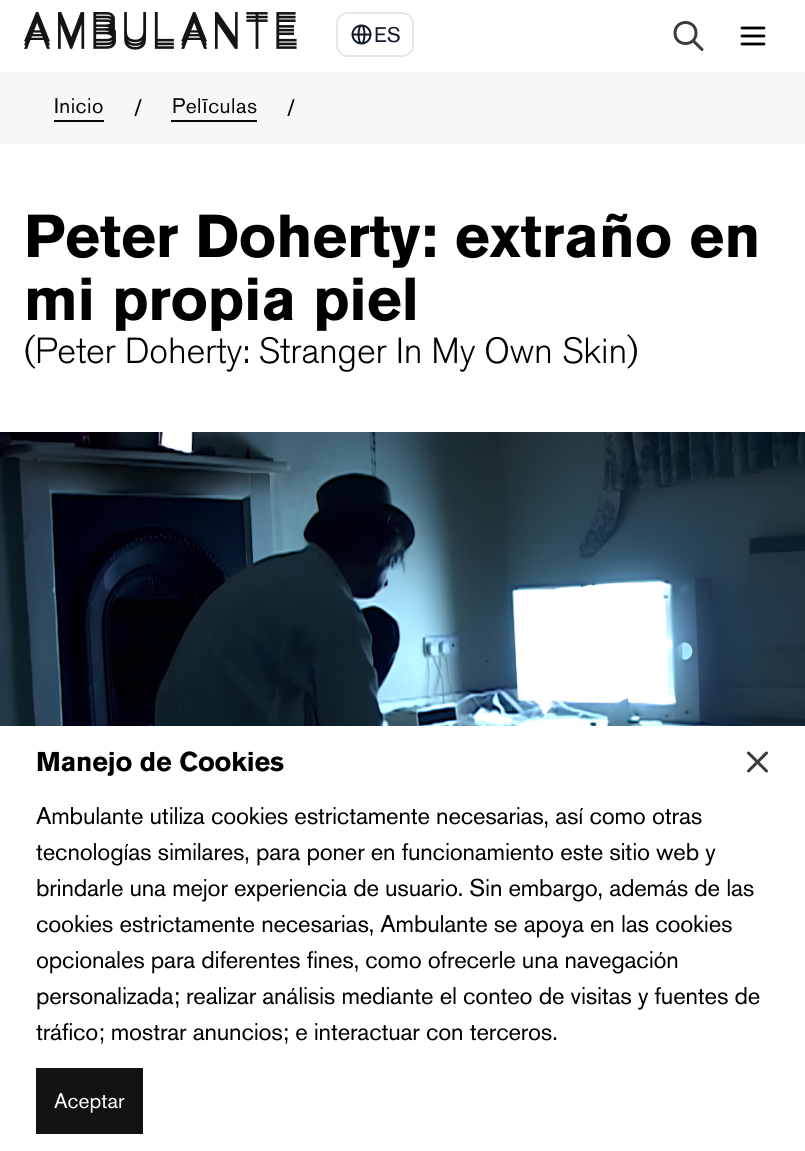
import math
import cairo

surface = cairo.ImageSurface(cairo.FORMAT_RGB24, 805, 1151)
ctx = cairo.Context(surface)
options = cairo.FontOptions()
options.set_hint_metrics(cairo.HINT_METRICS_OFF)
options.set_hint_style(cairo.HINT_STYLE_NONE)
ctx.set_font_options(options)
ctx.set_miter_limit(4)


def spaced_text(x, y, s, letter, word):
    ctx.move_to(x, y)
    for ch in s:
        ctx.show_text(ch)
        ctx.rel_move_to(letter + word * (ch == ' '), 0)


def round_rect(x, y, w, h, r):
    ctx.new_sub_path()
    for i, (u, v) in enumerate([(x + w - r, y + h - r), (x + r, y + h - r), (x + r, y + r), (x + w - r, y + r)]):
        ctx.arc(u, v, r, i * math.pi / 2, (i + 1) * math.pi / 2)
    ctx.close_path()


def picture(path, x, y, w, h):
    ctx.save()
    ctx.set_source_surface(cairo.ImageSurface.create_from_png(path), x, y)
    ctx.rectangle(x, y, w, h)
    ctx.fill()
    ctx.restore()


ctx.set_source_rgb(1, 1, 1)
ctx.paint()
picture("img1.png", 24, 12, 273, 38)
round_rect(337, 13, 76, 43, 11)
ctx.set_source_rgb(0.898, 0.906, 0.922)
ctx.stroke()
picture("img2.png", 351, 24, 21, 21)
ctx.select_font_face("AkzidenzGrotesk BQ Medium")
ctx.set_font_size(21)
ctx.set_source_rgb(0.067, 0.094, 0.153)
ctx.move_to(374, 42)
ctx.show_text("ES")
ctx.new_path()
ctx.move_to(702, 49.5)
ctx.line_to(693, 40.5)
ctx.move_to(696, 33)
ctx.curve_to(696, 47, 675, 47, 675, 33)
ctx.curve_to(675, 19, 696, 19, 696, 33)
ctx.close_path()
ctx.set_source_rgb(0.227, 0.231, 0.239)
ctx.set_line_width(3)
ctx.set_line_cap(cairo.LINE_CAP_ROUND)
ctx.set_line_join(cairo.LINE_JOIN_ROUND)
ctx.stroke()
ctx.new_path()
ctx.move_to(742, 28)
ctx.line_to(764, 28)
ctx.move_to(742, 36)
ctx.line_to(764, 36)
ctx.move_to(742, 44)
ctx.line_to(764, 44)
ctx.set_source_rgb(0, 0, 0)
ctx.set_line_width(2.8)
ctx.stroke()
ctx.set_source_rgb(0.961, 0.965, 0.969)
ctx.rectangle(0, 72, 805, 72)
ctx.fill()
ctx.set_source_rgb(0.039, 0.039, 0.039)
ctx.rectangle(54, 120, 50, 2)
ctx.fill()
spaced_text(54, 113, "Inicio", 0.5, 0)
ctx.set_font_size(24)
ctx.set_source_rgb(0, 0, 0)
ctx.move_to(134, 116)
ctx.show_text("/")
ctx.set_source_rgb(0.039, 0.039, 0.039)
ctx.rectangle(171, 120, 86, 2)
ctx.fill()
ctx.set_font_size(21)
spaced_text(172, 113, "Pel culas", 0.5, 0)
ctx.select_font_face("Liberation Sans")
spaced_text(202, 113, "ī", 0.5, 0)
ctx.select_font_face("AkzidenzGrotesk BQ Medium")
ctx.set_font_size(24)
ctx.set_source_rgb(0, 0, 0)
ctx.move_to(287, 116)
ctx.show_text("/")
ctx.select_font_face("AkzidenzGrotesk BQ", cairo.FONT_SLANT_NORMAL, cairo.FONT_WEIGHT_BOLD)
ctx.set_font_size(60)
spaced_text(24, 257, "Peter Doherty: extraño en", -0.2, 0)
spaced_text(24, 320, "mi propia piel", -0.2, 0)
ctx.select_font_face("AkzidenzGrotesk BQ Light")
ctx.set_font_size(36)
spaced_text(24, 363, "(Peter Doherty: Stranger In My Own Skin)", -0.2, 0)
picture("img3.png", 0, 432, 805, 294)
ctx.select_font_face("AkzidenzGrotesk BQ", cairo.FONT_SLANT_NORMAL, cairo.FONT_WEIGHT_BOLD)
ctx.set_font_size(27)
spaced_text(36, 771, "Manejo de Cookies", -0.2, 0)
ctx.new_path()
ctx.move_to(748.5, 771)
ctx.line_to(766.5, 753)
ctx.move_to(748.5, 753)
ctx.line_to(766.5, 771)
ctx.set_source_rgb(0.227, 0.231, 0.239)
ctx.set_line_width(3)
ctx.stroke()
ctx.select_font_face("AkzidenzGrotesk BQ Medium")
ctx.set_font_size(24)
ctx.set_source_rgb(0, 0, 0)
spaced_text(36, 824, "Ambulante utiliza cookies estrictamente necesarias, así como otras", -0.2, 0)
spaced_text(36, 860, "tecnologías similares, para poner en funcionamiento este sitio web y", -0.2, 0)
spaced_text(36, 896, "brindarle una mejor experiencia de usuario. Sin embargo, además de las", -0.2, 0)
spaced_text(36, 932, "cookies estrictamente necesarias, Ambulante se apoya en las cookies", -0.2, 0)
spaced_text(36, 968, "opcionales para diferentes fines, como ofrecerle una navegación", -0.2, 0)
spaced_text(36, 1004, "personalizada; realizar análisis mediante el conteo de visitas y fuentes de", -0.2, 0)
spaced_text(36, 1040, "tráfico; mostrar anuncios; e interactuar con terceros.", -0.2, 0)
ctx.set_source_rgb(0.075, 0.078, 0.078)
ctx.rectangle(36, 1068, 107, 66)
ctx.fill()
ctx.set_font_size(21)
ctx.set_source_rgb(1, 1, 1)
ctx.move_to(54, 1108)
ctx.show_text("Aceptar")
surface.write_to_png("page.png")
